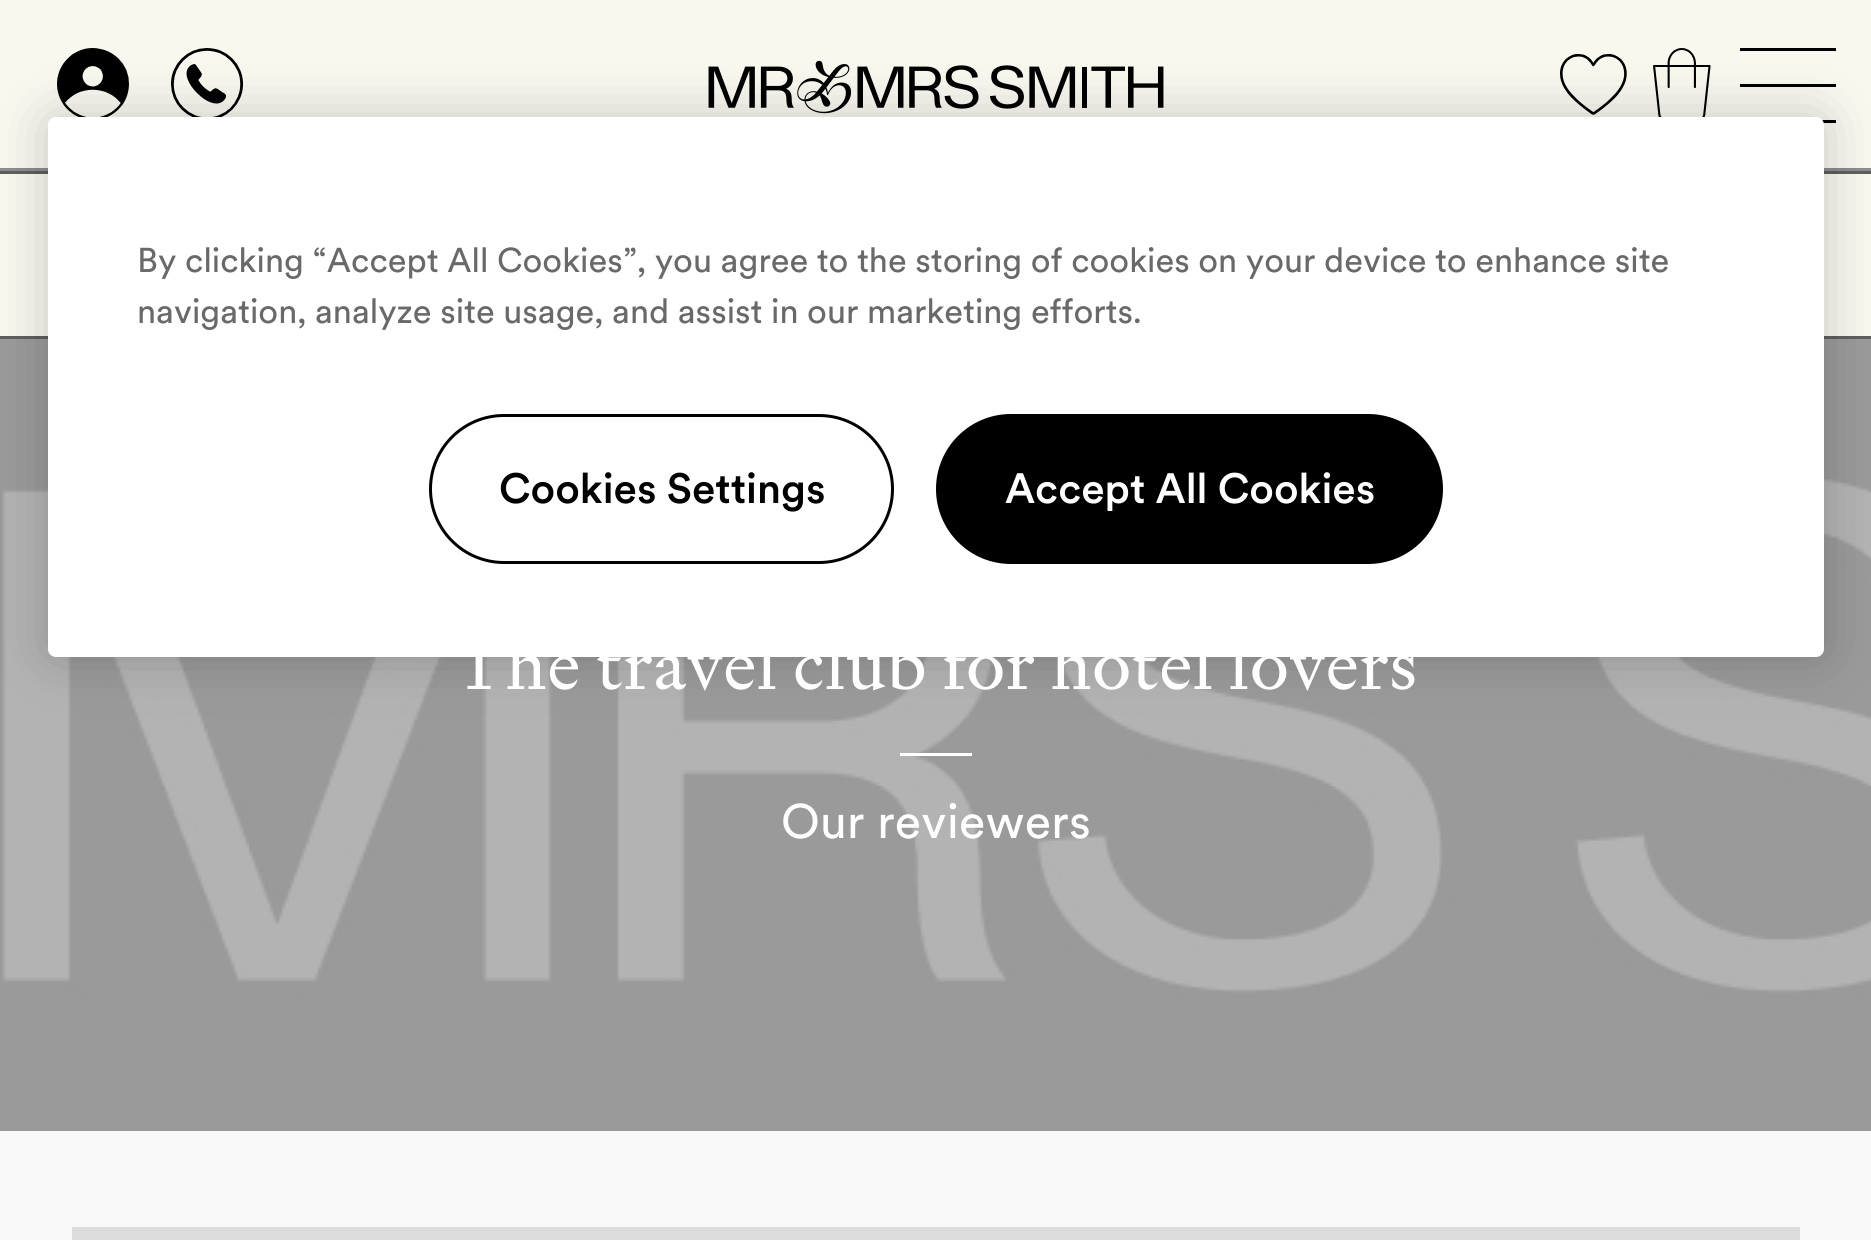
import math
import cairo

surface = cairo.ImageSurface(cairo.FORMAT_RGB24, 1871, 1240)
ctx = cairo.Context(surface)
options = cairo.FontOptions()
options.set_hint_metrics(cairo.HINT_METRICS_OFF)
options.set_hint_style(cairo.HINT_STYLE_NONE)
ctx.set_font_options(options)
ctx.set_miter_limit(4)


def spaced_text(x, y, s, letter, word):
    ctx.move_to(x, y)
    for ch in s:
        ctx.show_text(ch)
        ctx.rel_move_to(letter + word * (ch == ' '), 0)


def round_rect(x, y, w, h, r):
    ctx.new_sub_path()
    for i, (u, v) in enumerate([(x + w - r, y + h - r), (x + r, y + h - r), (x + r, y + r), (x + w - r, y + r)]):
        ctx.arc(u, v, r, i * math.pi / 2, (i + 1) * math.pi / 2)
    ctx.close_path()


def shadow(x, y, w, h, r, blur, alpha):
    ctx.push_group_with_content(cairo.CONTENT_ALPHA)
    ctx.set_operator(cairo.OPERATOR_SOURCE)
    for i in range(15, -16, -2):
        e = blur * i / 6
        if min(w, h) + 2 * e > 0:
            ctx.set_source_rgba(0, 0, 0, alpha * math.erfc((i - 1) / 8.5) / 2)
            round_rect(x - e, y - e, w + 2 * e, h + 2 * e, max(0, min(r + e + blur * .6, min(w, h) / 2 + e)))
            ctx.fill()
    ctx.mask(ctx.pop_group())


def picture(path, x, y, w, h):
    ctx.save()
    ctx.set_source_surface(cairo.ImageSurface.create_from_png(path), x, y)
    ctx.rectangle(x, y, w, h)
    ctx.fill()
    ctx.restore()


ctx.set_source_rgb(0.969, 0.969, 0.937)
ctx.paint()
ctx.set_source_rgb(0.549, 0.549, 0.549)
ctx.rectangle(0, 168, 1871, 3)
ctx.fill()
picture("img1.png", 57, 48, 72, 69)
picture("img2.png", 171, 48, 72, 69)
picture("img3.png", 708, 60, 456, 54)
picture("img4.png", 1560, 54, 67, 61)
picture("img5.png", 1653, 48, 58, 69)
ctx.set_source_rgb(0, 0, 0)
ctx.rectangle(1740, 48, 96, 3)
ctx.fill()
ctx.rectangle(1740, 84, 96, 3)
ctx.fill()
ctx.rectangle(1822, 120, 14, 3)
ctx.fill()
ctx.set_source_rgb(0.376, 0.369, 0.361)
ctx.rectangle(0, 171, 1871, 3)
ctx.fill()
ctx.rectangle(0, 336, 1871, 3)
ctx.fill()
picture("img6.png", 0, 339, 1871, 792)
ctx.set_source_rgb(0, 0, 0)
shadow(48, 117, 1776, 540, 8, 27, 0.2)
ctx.set_source_rgb(1, 1, 1)
round_rect(48, 117, 1776, 540, 8)
ctx.fill()
ctx.select_font_face("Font")
ctx.set_font_size(34.15)
ctx.set_source_rgb(0.412, 0.412, 0.412)
ctx.move_to(137, 272)
ctx.show_text("By clicking “Accept All Cookies”, you agree to the storing of cookies on your device to enhance site")
ctx.move_to(137, 323)
ctx.show_text("navigation, analyze site usage, and assist in our marketing efforts.")
round_rect(430.5, 415.5, 462, 147, 73.5)
ctx.set_source_rgb(0, 0, 0)
ctx.set_line_width(3)
ctx.stroke()
ctx.select_font_face("Font Medium")
ctx.set_font_size(42)
ctx.move_to(499, 503)
ctx.show_text("Cookies Settings")
round_rect(937.5, 415.5, 504, 147, 73.5)
ctx.fill_preserve()
ctx.stroke()
ctx.set_source_rgb(1, 1, 1)
ctx.move_to(1005, 503)
ctx.show_text("Accept All Cookies")
ctx.select_font_face("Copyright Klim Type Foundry")
ctx.set_font_size(72)
spaced_text(453, 689, "The travel club for hotel lovers", 0.9, 0)
ctx.rectangle(900, 753, 72, 3)
ctx.fill()
ctx.select_font_face("Font")
ctx.set_font_size(48)
spaced_text(781, 838, "Our reviewers", 0.25, 0)
ctx.set_source_rgb(0.976, 0.976, 0.976)
ctx.rectangle(0, 1131, 1871, 109)
ctx.fill()
ctx.set_source_rgb(0.863, 0.863, 0.863)
ctx.rectangle(72, 1227, 1728, 13)
ctx.fill()
surface.write_to_png("page.png")
